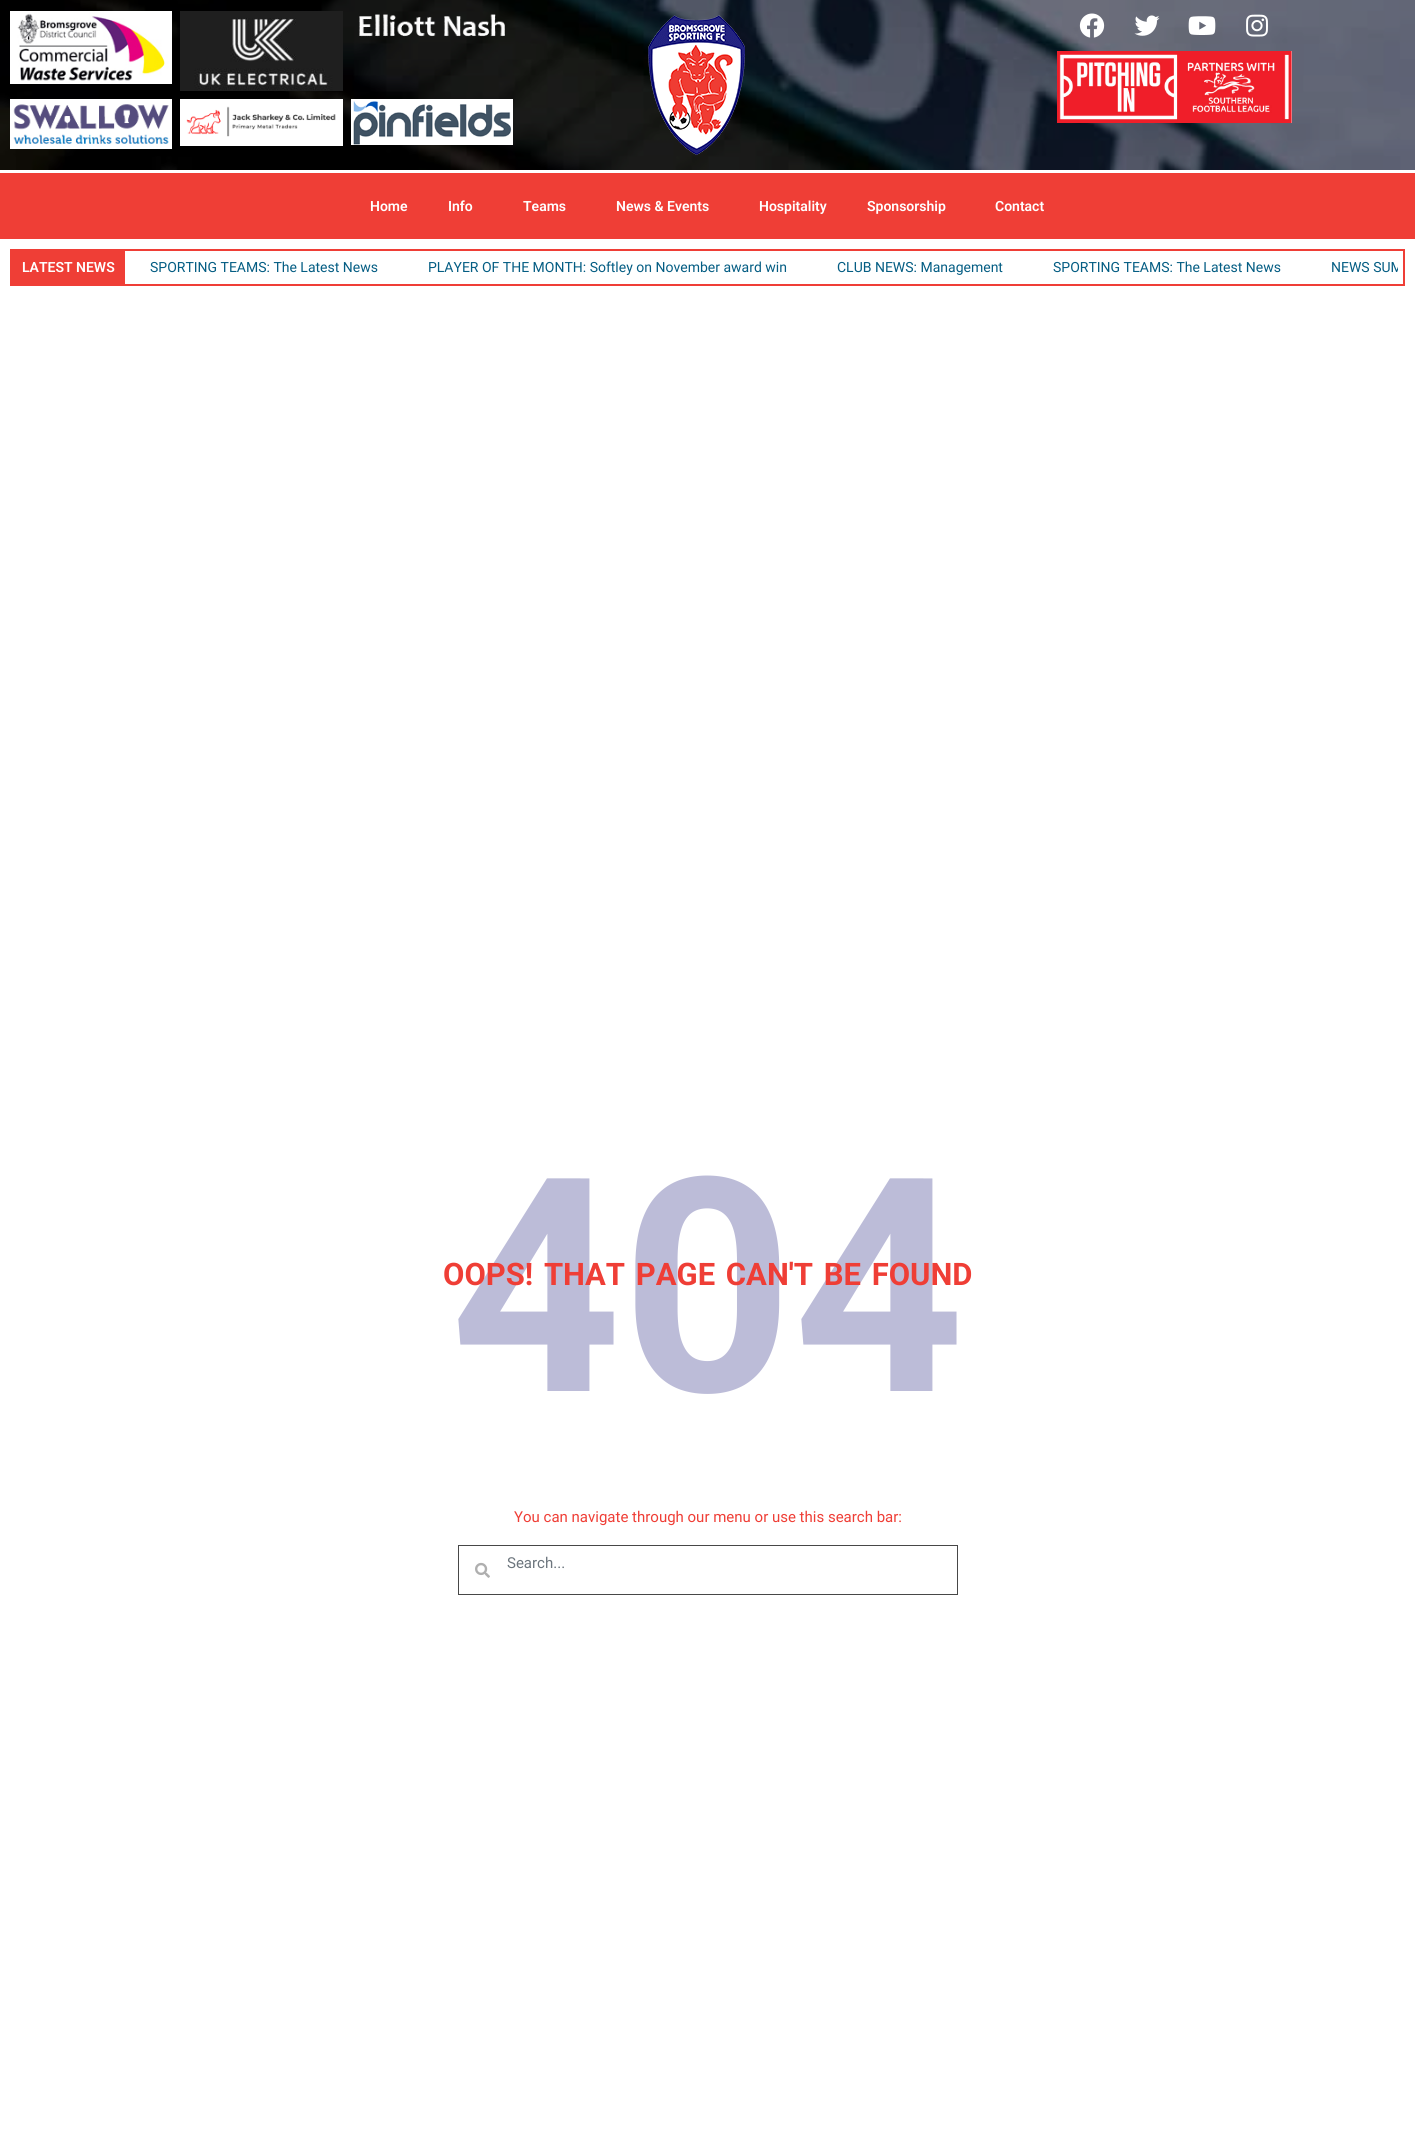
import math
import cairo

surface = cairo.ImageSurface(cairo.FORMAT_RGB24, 1415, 2144)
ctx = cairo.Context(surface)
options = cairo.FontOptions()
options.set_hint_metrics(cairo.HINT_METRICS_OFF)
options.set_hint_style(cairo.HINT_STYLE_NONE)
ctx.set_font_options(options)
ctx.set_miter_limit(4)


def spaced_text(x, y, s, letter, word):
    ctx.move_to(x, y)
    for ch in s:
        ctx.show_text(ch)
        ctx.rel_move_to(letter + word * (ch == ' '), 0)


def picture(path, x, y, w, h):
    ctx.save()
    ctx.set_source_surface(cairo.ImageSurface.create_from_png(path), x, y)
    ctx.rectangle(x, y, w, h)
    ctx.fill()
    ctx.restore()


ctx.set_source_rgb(1, 1, 1)
ctx.paint()
picture("img1.png", 0, 0, 1415, 170)
picture("img2.png", 10, 11, 162, 73)
picture("img3.png", 180, 11, 163, 80)
picture("img4.png", 359, 14, 146, 23)
picture("img5.png", 10, 99, 162, 50)
picture("img6.png", 180, 99, 163, 47)
picture("img7.png", 351, 99, 162, 46)
picture("img8.png", 648, 15, 97, 140)
picture("img9.png", 1079, 13, 26, 25)
picture("img10.png", 1134, 15, 26, 21)
picture("img11.png", 1188, 16, 28, 19)
picture("img12.png", 1246, 14, 22, 23)
picture("img13.png", 1057, 51, 235, 72)
ctx.set_source_rgb(0.937, 0.243, 0.212)
ctx.rectangle(0, 173, 1415, 66)
ctx.fill()
ctx.select_font_face("Roboto SemiBold")
ctx.set_font_size(14)
ctx.set_source_rgb(1, 1, 1)
ctx.move_to(370, 211)
ctx.show_text("Home")
ctx.move_to(448, 211)
ctx.show_text("Info")
ctx.move_to(523, 211)
ctx.show_text("Teams")
ctx.move_to(616, 211)
ctx.show_text("News & Events")
ctx.move_to(759, 211)
ctx.show_text("Hospitality")
ctx.move_to(867, 211)
ctx.show_text("Sponsorship")
ctx.move_to(995, 211)
ctx.show_text("Contact")
ctx.rectangle(11, 250, 1393, 35)
ctx.set_source_rgb(0.937, 0.243, 0.212)
ctx.stroke()
ctx.rectangle(12, 251, 113, 33)
ctx.fill()
ctx.set_source_rgb(1, 1, 1)
ctx.move_to(22, 272)
ctx.show_text("LATEST NEWS")
ctx.select_font_face("Roboto")
ctx.set_source_rgb(0.016, 0.365, 0.514)
ctx.move_to(150, 272)
ctx.show_text("SPORTING TEAMS: The Latest News")
ctx.move_to(428, 272)
ctx.show_text("PLAYER OF THE MONTH: Softley on November award win")
ctx.move_to(837, 272)
ctx.show_text("CLUB NEWS: Management")
ctx.move_to(1053, 272)
ctx.show_text("SPORTING TEAMS: The Latest News")
ctx.save()
ctx.rectangle(125, 256, 1273, 23)
ctx.clip()
ctx.move_to(1331, 272)
ctx.show_text("NEWS SUM")
ctx.restore()
ctx.select_font_face("Roboto", cairo.FONT_SLANT_NORMAL, cairo.FONT_WEIGHT_BOLD)
ctx.set_font_size(299)
ctx.set_source_rgb(0.737, 0.737, 0.847)
ctx.move_to(450, 1391)
ctx.show_text("404")
ctx.set_font_size(31)
ctx.set_source_rgb(0.937, 0.243, 0.212)
spaced_text(443, 1285, "OOPS! THAT PAGE CAN'T BE FOUND", 0, 3)
ctx.select_font_face("Roboto")
ctx.set_font_size(15)
ctx.move_to(514, 1522)
ctx.show_text("You can navigate through our menu or use this search bar:")
ctx.rectangle(458.5, 1545.5, 499, 49)
ctx.set_source_rgb(0.278, 0.278, 0.278)
ctx.set_line_width(1)
ctx.stroke()
picture("img14.png", 475, 1562, 15, 16)
ctx.set_source_rgb(0.424, 0.459, 0.49)
ctx.move_to(507, 1568)
ctx.show_text("Search...")
surface.write_to_png("page.png")
